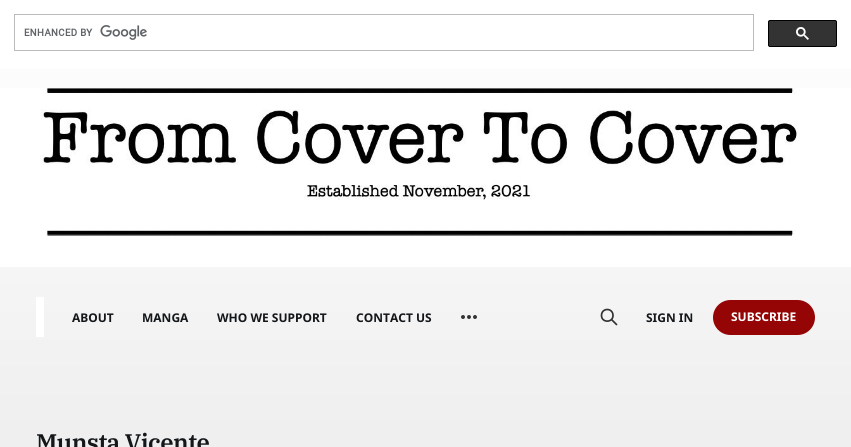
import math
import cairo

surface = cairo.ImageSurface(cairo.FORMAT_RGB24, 851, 447)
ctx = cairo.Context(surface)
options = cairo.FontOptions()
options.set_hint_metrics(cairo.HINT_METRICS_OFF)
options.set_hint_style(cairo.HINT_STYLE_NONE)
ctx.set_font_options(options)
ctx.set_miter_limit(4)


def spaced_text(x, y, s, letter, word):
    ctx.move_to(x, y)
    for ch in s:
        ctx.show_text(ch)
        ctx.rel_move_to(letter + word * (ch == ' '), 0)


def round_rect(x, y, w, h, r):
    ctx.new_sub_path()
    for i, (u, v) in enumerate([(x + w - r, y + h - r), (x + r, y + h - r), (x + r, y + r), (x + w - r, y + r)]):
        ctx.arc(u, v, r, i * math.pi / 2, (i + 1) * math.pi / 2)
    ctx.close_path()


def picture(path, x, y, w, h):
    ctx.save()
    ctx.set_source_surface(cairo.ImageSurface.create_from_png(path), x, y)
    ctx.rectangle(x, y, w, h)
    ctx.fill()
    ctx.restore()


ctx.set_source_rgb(1, 1, 1)
ctx.paint()
gradient = cairo.LinearGradient(426, 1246, 426, 0)
gradient.add_color_stop_rgba(0.65, 0.937, 0.937, 0.937, 1)
gradient.add_color_stop_rgba(1, 1, 1, 1, 1)
ctx.set_source(gradient)
ctx.rectangle(0, 69, 851, 378)
ctx.fill()
ctx.rectangle(14.5, 14.5, 739, 36)
ctx.set_source_rgb(0.733, 0.733, 0.733)
ctx.set_line_width(1)
ctx.stroke()
picture("img1.png", 24, 25, 123, 15)
ctx.set_source_rgb(0.2, 0.2, 0.2)
round_rect(768.5, 20.5, 68, 26, 1.5)
ctx.fill_preserve()
ctx.set_source_rgb(0, 0, 0)
ctx.stroke()
picture("img2.png", 796, 27, 13, 13)
picture("img3.png", 0, 88, 851, 179)
ctx.set_source_rgb(1, 1, 1)
ctx.rectangle(36, 297, 8, 40)
ctx.fill()
ctx.select_font_face("Noto Sans", cairo.FONT_SLANT_NORMAL, cairo.FONT_WEIGHT_BOLD)
ctx.set_font_size(12)
ctx.set_source_rgb(0.082, 0.09, 0.102)
ctx.move_to(72, 322)
ctx.show_text("ABOUT")
ctx.move_to(142, 322)
ctx.show_text("MANGA")
ctx.move_to(217, 322)
ctx.show_text("WHO WE SUPPORT")
ctx.move_to(356, 322)
ctx.show_text("CONTACT US")
picture("img4.png", 461, 315, 16, 4)
ctx.new_path()
ctx.move_to(616.5, 324.5)
ctx.line_to(611.5, 319.5)
ctx.move_to(613, 315.5)
ctx.curve_to(613, 323, 601.5, 323, 601.5, 315.5)
ctx.curve_to(601.5, 307.5, 613, 307.5, 613, 315.5)
ctx.close_path()
ctx.set_source_rgb(0.2, 0.2, 0.2)
ctx.set_line_width(1.7)
ctx.set_line_cap(cairo.LINE_CAP_ROUND)
ctx.set_line_join(cairo.LINE_JOIN_ROUND)
ctx.stroke()
ctx.set_source_rgb(0.082, 0.09, 0.102)
ctx.move_to(646, 322)
ctx.show_text("SIGN IN")
ctx.set_source_rgb(0.584, 0.02, 0.02)
round_rect(713, 300, 102, 35, 17.5)
ctx.fill()
ctx.set_source_rgb(1, 1, 1)
ctx.move_to(731, 321)
ctx.show_text("SUBSCRIBE")
ctx.select_font_face("IBM Plex Serif SemiBold")
ctx.set_font_size(24)
ctx.set_source_rgb(0.082, 0.09, 0.102)
spaced_text(36, 451, "Munsta Vicente", -0.5, 0)
surface.write_to_png("page.png")
